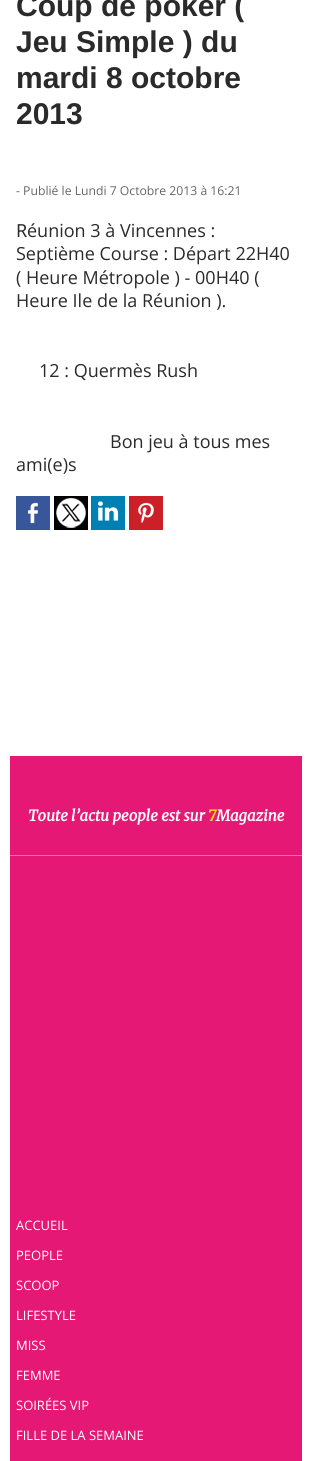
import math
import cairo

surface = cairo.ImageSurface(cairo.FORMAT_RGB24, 312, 1461)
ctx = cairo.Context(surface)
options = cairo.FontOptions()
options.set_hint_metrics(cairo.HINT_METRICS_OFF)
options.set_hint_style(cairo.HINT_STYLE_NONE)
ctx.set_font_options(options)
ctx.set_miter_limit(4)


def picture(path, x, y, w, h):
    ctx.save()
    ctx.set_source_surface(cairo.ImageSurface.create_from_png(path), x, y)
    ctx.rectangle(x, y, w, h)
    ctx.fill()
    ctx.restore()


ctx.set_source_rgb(1, 1, 1)
ctx.paint()
ctx.select_font_face("Liberation Sans", cairo.FONT_SLANT_NORMAL, cairo.FONT_WEIGHT_BOLD)
ctx.set_font_size(30)
ctx.set_source_rgb(0.165, 0.165, 0.165)
ctx.move_to(16, 16)
ctx.show_text("Coup de poker (")
ctx.move_to(16, 52)
ctx.show_text("Jeu Simple ) du")
ctx.move_to(16, 88)
ctx.show_text("mardi 8 octobre")
ctx.move_to(16, 124)
ctx.show_text("2013")
ctx.select_font_face("Open Sans")
ctx.set_font_size(12.2)
ctx.set_source_rgb(0.4, 0.4, 0.4)
ctx.move_to(16, 195)
ctx.show_text("- Publié le Lundi 7 Octobre 2013 à 16:21")
ctx.select_font_face("Noto Sans")
ctx.set_font_size(18)
ctx.set_source_rgb(0.165, 0.165, 0.165)
ctx.move_to(16, 237)
ctx.show_text("R")
ctx.select_font_face("Open Sans")
ctx.move_to(27, 237)
ctx.show_text("éunion 3 à Vincennes :")
ctx.move_to(16, 260)
ctx.show_text("Septième Course : Départ 22H40")
ctx.move_to(16, 284)
ctx.show_text("( Heure Métropole ) - 00H40 (")
ctx.move_to(16, 307)
ctx.show_text("Heure Ile de la Réunion ).")
ctx.move_to(39, 377)
ctx.show_text("12 : Quermès Rush")
ctx.move_to(110, 448)
ctx.show_text("Bon jeu à tous mes")
ctx.move_to(16, 471)
ctx.show_text("ami(e)s")
picture("img1.png", 16, 496, 34, 34)
picture("img2.png", 54, 496, 34, 34)
picture("img3.png", 91, 496, 34, 34)
picture("img4.png", 129, 496, 34, 34)
ctx.set_source_rgb(0.902, 0.094, 0.459)
ctx.rectangle(10, 756, 292, 705)
ctx.fill()
ctx.select_font_face("Merriweather", cairo.FONT_SLANT_ITALIC, cairo.FONT_WEIGHT_BOLD)
ctx.set_font_size(15)
ctx.set_source_rgb(1, 1, 1)
ctx.move_to(28, 821)
ctx.show_text("Toute l’actu people est sur")
ctx.set_source_rgb(1, 0.863, 0.055)
ctx.move_to(208, 821)
ctx.show_text("7")
ctx.set_source_rgb(1, 1, 1)
ctx.move_to(216, 821)
ctx.show_text("Magazine")
ctx.set_source_rgb(1, 0.408, 0.671)
ctx.rectangle(10, 855, 292, 1)
ctx.fill()
ctx.select_font_face("Open Sans")
ctx.set_font_size(13)
ctx.set_source_rgb(1, 1, 1)
ctx.move_to(16, 1230)
ctx.show_text("ACCUEIL")
ctx.move_to(16, 1260)
ctx.show_text("PEOPLE")
ctx.move_to(16, 1290)
ctx.show_text("SCOOP")
ctx.move_to(16, 1320)
ctx.show_text("LIFESTYLE")
ctx.move_to(16, 1350)
ctx.show_text("MISS")
ctx.move_to(16, 1380)
ctx.show_text("FEMME")
ctx.move_to(16, 1410)
ctx.show_text("SOIRÉES VIP")
ctx.move_to(16, 1440)
ctx.show_text("FILLE DE LA SEMAINE")
surface.write_to_png("page.png")
